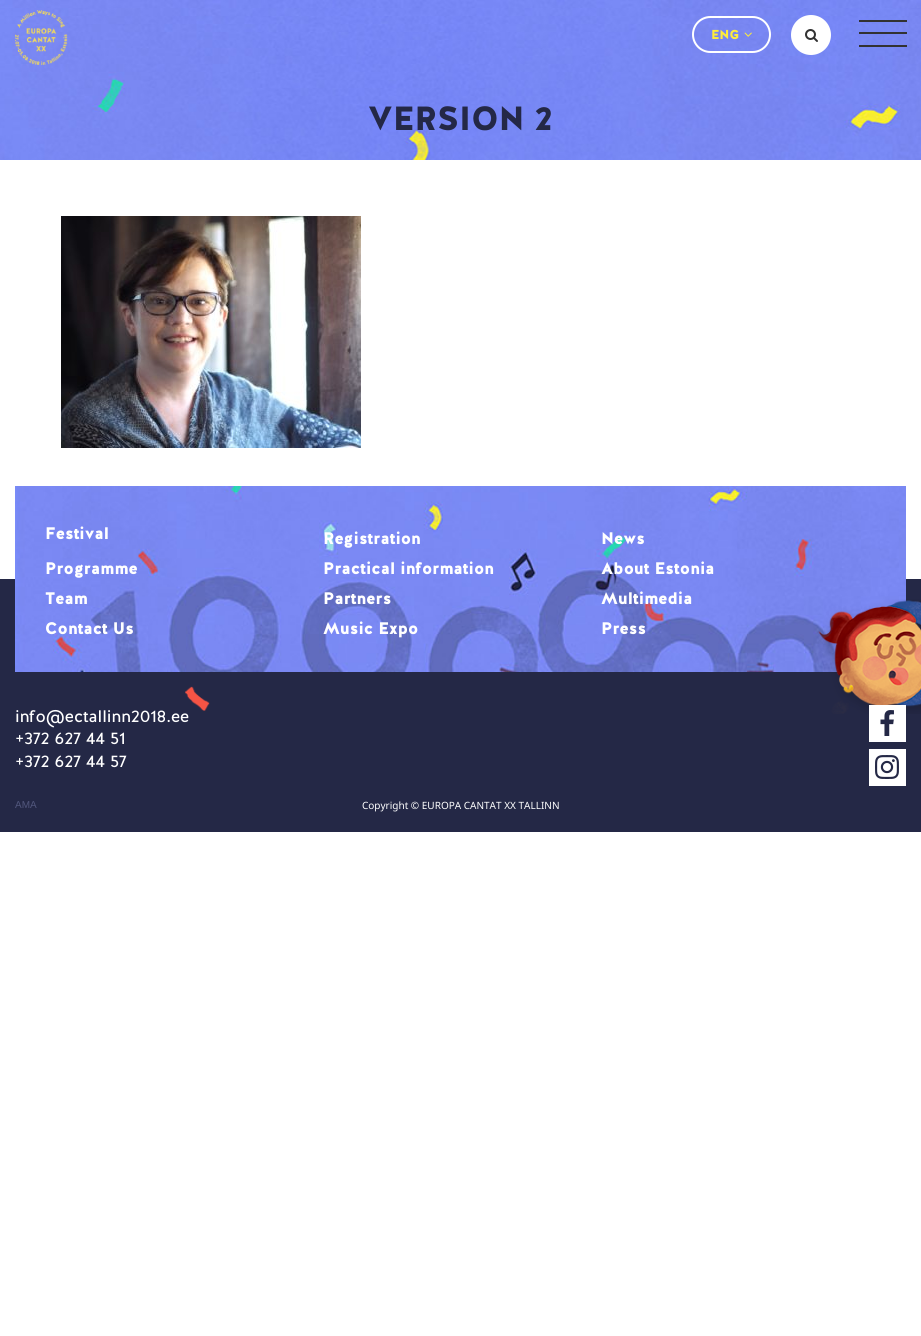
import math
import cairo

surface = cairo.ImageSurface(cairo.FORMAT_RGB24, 921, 1336)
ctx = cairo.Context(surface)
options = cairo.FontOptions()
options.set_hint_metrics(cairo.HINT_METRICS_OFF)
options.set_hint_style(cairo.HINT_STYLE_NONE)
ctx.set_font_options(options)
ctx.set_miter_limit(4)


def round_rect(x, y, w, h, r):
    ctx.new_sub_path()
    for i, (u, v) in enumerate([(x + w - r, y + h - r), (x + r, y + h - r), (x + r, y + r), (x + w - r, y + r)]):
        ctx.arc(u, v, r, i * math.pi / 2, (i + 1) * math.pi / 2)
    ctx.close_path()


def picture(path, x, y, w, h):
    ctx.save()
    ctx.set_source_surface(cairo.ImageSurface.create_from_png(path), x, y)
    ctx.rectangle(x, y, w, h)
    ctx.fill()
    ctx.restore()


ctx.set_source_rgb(1, 1, 1)
ctx.paint()
picture("img4.png", 0, 0, 921, 160)
picture("img1.png", 15, 10, 53, 55)
round_rect(693, 17, 77, 35, 17.5)
ctx.set_source_rgb(1, 1, 1)
ctx.stroke()
ctx.select_font_face("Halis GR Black")
ctx.set_font_size(13)
ctx.set_source_rgb(0.996, 0.929, 0.227)
ctx.move_to(711, 39)
ctx.show_text("ENG")
picture("img2.png", 744, 32, 8, 5)
ctx.set_source_rgb(1, 1, 1)
ctx.arc(811, 35, 20, 0, 2 * math.pi)
ctx.fill()
picture("img3.png", 805, 29, 13, 13)
ctx.set_source_rgb(0.196, 0.196, 0.196)
ctx.rectangle(859, 20, 48, 2)
ctx.fill()
ctx.rectangle(859, 32, 48, 2)
ctx.fill()
ctx.rectangle(859, 45, 48, 2)
ctx.fill()
ctx.set_font_size(33.5)
ctx.set_source_rgb(0.141, 0.157, 0.275)
ctx.move_to(368, 130)
ctx.show_text("VERSION 2")
picture("img5.png", 61, 216, 300, 232)
ctx.rectangle(0, 579, 921, 253)
ctx.fill()
picture("img6.png", 15, 486, 891, 186)
ctx.set_font_size(16.75)
ctx.set_source_rgb(1, 1, 1)
ctx.move_to(45, 539)
ctx.show_text("Festival")
ctx.move_to(323, 544)
ctx.show_text("Registration")
ctx.move_to(601, 544)
ctx.show_text("News")
ctx.move_to(45, 574)
ctx.show_text("Programme")
ctx.move_to(323, 574)
ctx.show_text("Practical information")
ctx.move_to(601, 574)
ctx.show_text("About Estonia")
ctx.move_to(45, 604)
ctx.show_text("Team")
ctx.move_to(323, 604)
ctx.show_text("Partners")
ctx.move_to(601, 604)
ctx.show_text("Multimedia")
ctx.move_to(45, 634)
ctx.show_text("Contact Us")
ctx.move_to(323, 634)
ctx.show_text("Music Expo")
ctx.move_to(601, 634)
ctx.show_text("Press")
picture("img7.png", 818, 599, 103, 115)
picture("img10.png", 185, 686, 25, 25)
ctx.select_font_face("Halis GR")
ctx.move_to(15, 722)
ctx.show_text("info@ectallinn2018.ee")
ctx.move_to(15, 744)
ctx.show_text("+372 627 44 51")
ctx.move_to(15, 767)
ctx.show_text("+372 627 44 57")
ctx.rectangle(869, 705, 37, 37)
ctx.fill()
picture("img8.png", 880, 710, 14, 26)
ctx.rectangle(869, 749, 37, 37)
ctx.fill()
picture("img9.png", 875, 755, 24, 24)
ctx.select_font_face("Liberation Sans")
ctx.set_font_size(10)
ctx.set_source_rgb(0.322, 0.341, 0.49)
ctx.move_to(15, 808)
ctx.show_text("AMA")
ctx.select_font_face("Noto Sans")
ctx.set_source_rgb(1, 1, 1)
ctx.move_to(362, 809)
ctx.show_text("Copyright © EUROPA CANTAT XX TALLINN")
surface.write_to_png("page.png")
